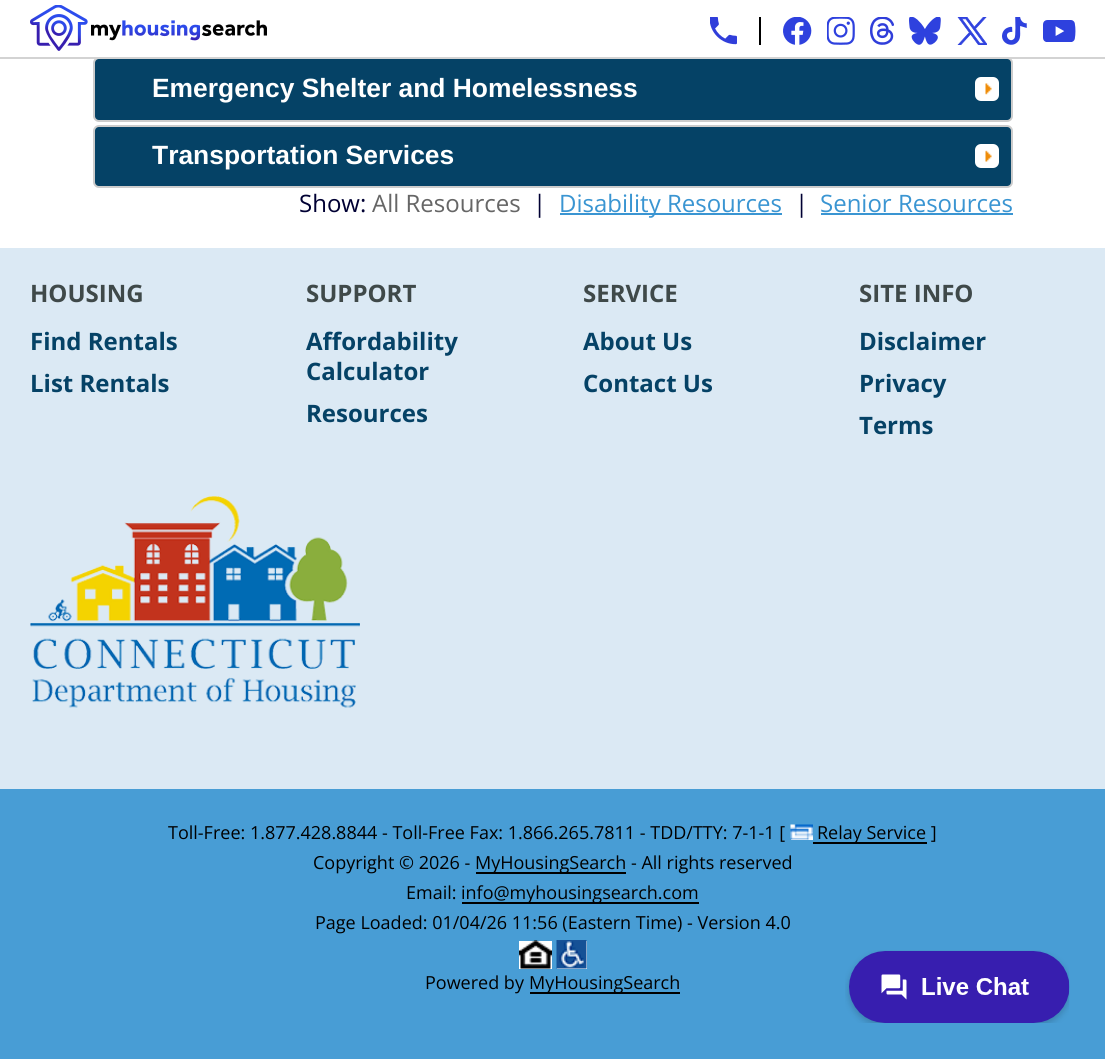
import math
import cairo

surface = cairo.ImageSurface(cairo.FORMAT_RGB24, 1105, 1059)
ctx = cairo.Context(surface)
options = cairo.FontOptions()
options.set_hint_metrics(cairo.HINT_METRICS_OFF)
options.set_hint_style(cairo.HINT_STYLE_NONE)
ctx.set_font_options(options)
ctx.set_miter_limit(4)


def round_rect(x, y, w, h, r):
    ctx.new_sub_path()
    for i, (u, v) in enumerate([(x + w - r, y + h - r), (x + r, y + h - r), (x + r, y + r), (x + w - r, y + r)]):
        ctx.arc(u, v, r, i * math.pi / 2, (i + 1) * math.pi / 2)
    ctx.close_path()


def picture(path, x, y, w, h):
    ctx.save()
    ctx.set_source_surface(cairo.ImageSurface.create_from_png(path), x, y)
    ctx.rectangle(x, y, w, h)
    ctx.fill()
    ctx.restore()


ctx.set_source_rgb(1, 1, 1)
ctx.paint()
ctx.set_source_rgb(0.02, 0.259, 0.4)
round_rect(94, 58, 918, 63, 5)
ctx.fill_preserve()
ctx.set_source_rgb(0.8, 0.8, 0.8)
ctx.stroke()
ctx.set_source_rgb(0.827, 0.827, 0.827)
ctx.rectangle(0, 57, 1105, 2)
ctx.fill()
picture("img1.png", 30, 5, 237, 46)
ctx.set_source_rgb(0, 0, 0)
ctx.rectangle(759, 17, 2, 28)
ctx.fill()
picture("img2.png", 710, 17, 27, 28)
picture("img3.png", 783, 17, 29, 28)
picture("img4.png", 827, 17, 28, 28)
picture("img5.png", 870, 17, 24, 28)
picture("img6.png", 909, 17, 32, 28)
picture("img7.png", 957, 17, 30, 28)
picture("img8.png", 1002, 17, 25, 28)
picture("img9.png", 1043, 20, 33, 22)
ctx.select_font_face("Liberation Sans", cairo.FONT_SLANT_NORMAL, cairo.FONT_WEIGHT_BOLD)
ctx.set_font_size(26.4)
ctx.set_source_rgb(1, 1, 1)
ctx.move_to(152, 97)
ctx.show_text("Emergency Shelter and Homelessness")
round_rect(975, 77, 24, 24, 6)
ctx.fill()
picture("img10.png", 985, 83, 7, 12)
ctx.set_source_rgb(0.02, 0.259, 0.4)
round_rect(94, 126, 918, 61, 5)
ctx.fill_preserve()
ctx.set_source_rgb(0.8, 0.8, 0.8)
ctx.stroke()
ctx.set_source_rgb(1, 1, 1)
ctx.move_to(152, 164)
ctx.show_text("Transportation Services")
round_rect(975, 144, 24, 24, 6)
ctx.fill()
picture("img11.png", 985, 150, 7, 12)
ctx.select_font_face("Open Sans")
ctx.set_font_size(24)
ctx.set_source_rgb(0, 0, 0.2)
ctx.move_to(299, 212)
ctx.show_text("Show:")
ctx.set_source_rgb(0.4, 0.4, 0.4)
ctx.move_to(372, 212)
ctx.show_text("All Resources")
ctx.set_source_rgb(0, 0, 0.2)
ctx.move_to(533, 212)
ctx.show_text("|")
ctx.set_source_rgb(0.227, 0.584, 0.824)
ctx.rectangle(560, 213, 222, 2)
ctx.fill()
ctx.move_to(559, 212)
ctx.show_text("Disability Resources")
ctx.set_source_rgb(0, 0, 0.2)
ctx.move_to(795, 212)
ctx.show_text("|")
ctx.set_source_rgb(0.227, 0.584, 0.824)
ctx.move_to(820, 212)
ctx.show_text("Senior Resources")
ctx.rectangle(821, 213, 192, 2)
ctx.fill()
ctx.set_source_rgb(0.859, 0.914, 0.957)
ctx.rectangle(0, 248, 1105, 541)
ctx.fill()
ctx.select_font_face("Open Sans", cairo.FONT_SLANT_NORMAL, cairo.FONT_WEIGHT_BOLD)
ctx.set_source_rgb(0.247, 0.286, 0.286)
ctx.move_to(30, 302)
ctx.show_text("HOUSING")
ctx.set_source_rgb(0.02, 0.259, 0.4)
ctx.move_to(30, 350)
ctx.show_text("Find Rentals")
ctx.move_to(30, 392)
ctx.show_text("List Rentals")
ctx.set_source_rgb(0.247, 0.286, 0.286)
ctx.move_to(306, 302)
ctx.show_text("SUPPORT")
ctx.set_source_rgb(0.02, 0.259, 0.4)
ctx.move_to(306, 350)
ctx.show_text("Affordability")
ctx.move_to(306, 380)
ctx.show_text("Calculator")
ctx.move_to(306, 422)
ctx.show_text("Resources")
ctx.set_source_rgb(0.247, 0.286, 0.286)
ctx.move_to(583, 302)
ctx.show_text("SERVICE")
ctx.set_source_rgb(0.02, 0.259, 0.4)
ctx.move_to(583, 350)
ctx.show_text("About Us")
ctx.move_to(583, 392)
ctx.show_text("Contact Us")
ctx.set_source_rgb(0.247, 0.286, 0.286)
ctx.move_to(859, 302)
ctx.show_text("SITE INFO")
ctx.set_source_rgb(0.02, 0.259, 0.4)
ctx.move_to(859, 350)
ctx.show_text("Disclaimer")
ctx.move_to(859, 392)
ctx.show_text("Privacy")
ctx.move_to(859, 434)
ctx.show_text("Terms")
picture("img12.png", 30, 496, 330, 212)
ctx.set_source_rgb(0.282, 0.616, 0.835)
ctx.rectangle(0, 789, 1105, 270)
ctx.fill()
ctx.select_font_face("Open Sans")
ctx.set_font_size(18)
ctx.set_source_rgb(0, 0, 0)
ctx.move_to(168, 839)
ctx.show_text("Toll-Free: 1.877.428.8844 - Toll-Free Fax: 1.866.265.7811 - TDD/TTY: 7-1-1 [")
ctx.set_source_rgb(1, 1, 1)
ctx.rectangle(791, 839, 22, 1)
ctx.fill()
picture("img13.png", 790, 824, 23, 16)
ctx.set_source_rgb(0, 0, 0)
ctx.rectangle(813, 842, 114, 2)
ctx.fill()
ctx.move_to(817, 839)
ctx.show_text("Relay Service ]")
ctx.move_to(313, 869)
ctx.show_text("Copyright © 2026 -")
ctx.rectangle(476, 872, 150, 2)
ctx.fill()
ctx.move_to(475, 869)
ctx.show_text("MyHousingSearch - All rights reserved")
ctx.move_to(406, 899)
ctx.show_text("Email:")
ctx.rectangle(462, 902, 237, 2)
ctx.fill()
ctx.move_to(461, 899)
ctx.show_text("info@myhousingsearch.com")
ctx.move_to(315, 929)
ctx.show_text("Page Loaded: 01/04/26 11:56 (Eastern Time) - Version 4.0")
ctx.set_source_rgb(1, 1, 1)
ctx.rectangle(519, 941, 33, 28)
ctx.fill()
picture("img14.png", 519, 940, 33, 29)
ctx.rectangle(557, 941, 30, 28)
ctx.fill()
picture("img15.png", 556, 940, 31, 29)
ctx.set_source_rgb(0, 0, 0)
ctx.move_to(425, 989)
ctx.show_text("Powered by")
ctx.rectangle(530, 992, 150, 2)
ctx.fill()
ctx.move_to(529, 989)
ctx.show_text("MyHousingSearch")
picture("img16.png", 845, 950, 225, 73)
surface.write_to_png("page.png")
